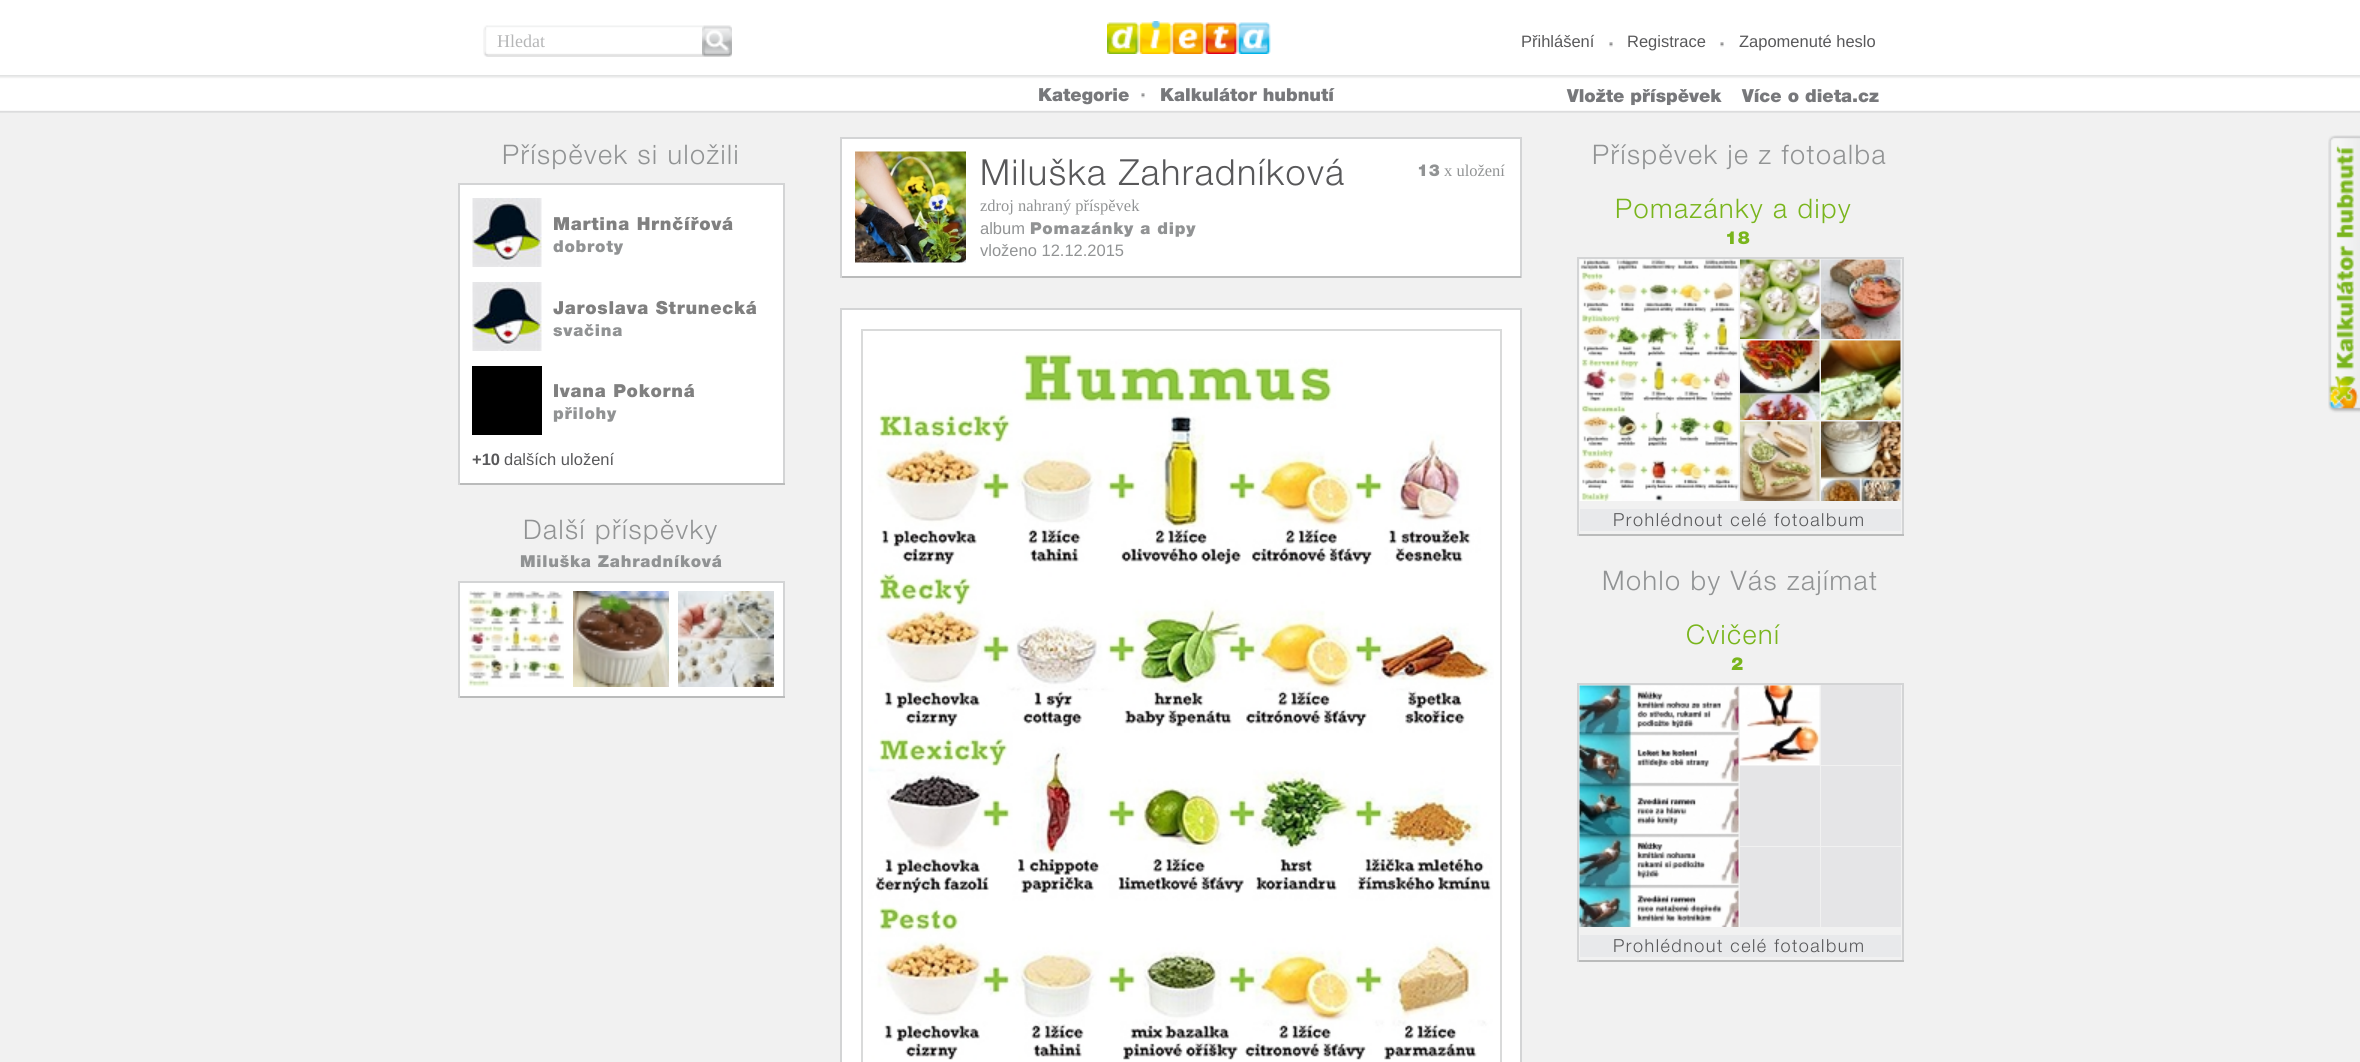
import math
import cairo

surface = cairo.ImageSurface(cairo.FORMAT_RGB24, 2360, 1062)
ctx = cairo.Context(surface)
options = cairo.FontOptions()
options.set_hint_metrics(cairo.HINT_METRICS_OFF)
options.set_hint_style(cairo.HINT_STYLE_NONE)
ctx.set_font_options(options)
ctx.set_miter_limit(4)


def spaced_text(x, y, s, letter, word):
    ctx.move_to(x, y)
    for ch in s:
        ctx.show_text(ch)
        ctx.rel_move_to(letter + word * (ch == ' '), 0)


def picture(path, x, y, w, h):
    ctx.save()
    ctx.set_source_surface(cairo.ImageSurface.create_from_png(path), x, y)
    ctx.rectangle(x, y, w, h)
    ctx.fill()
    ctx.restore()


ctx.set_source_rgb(0.945, 0.945, 0.945)
ctx.paint()
ctx.set_source_rgb(1, 1, 1)
ctx.rectangle(0, 0, 2360, 75)
ctx.fill()
picture("img1.png", 483, 25, 219, 32)
ctx.select_font_face("Liberation Serif")
ctx.set_font_size(18)
ctx.set_source_rgb(0.71, 0.714, 0.718)
ctx.move_to(497, 47)
ctx.show_text("Hledat")
picture("img2.png", 702, 25, 30, 32)
picture("img3.png", 1107, 21, 164, 33)
ctx.select_font_face("Liberation Sans")
ctx.set_font_size(16.5)
ctx.set_source_rgb(0.345, 0.345, 0.353)
ctx.move_to(1521, 47)
ctx.show_text("Přihlášení")
picture("img4.png", 1609, 42, 4, 5)
ctx.move_to(1627, 47)
ctx.show_text("Registrace")
picture("img4.png", 1720, 42, 4, 5)
ctx.move_to(1739, 47)
ctx.show_text("Zapomenuté heslo")
picture("img5.png", 0, 75, 2360, 38)
ctx.select_font_face("Helvetica Neue Black")
ctx.set_font_size(18)
ctx.set_source_rgb(0.467, 0.471, 0.482)
ctx.move_to(1038, 101)
ctx.show_text("Kategorie")
picture("img4.png", 1141, 93, 4, 5)
ctx.move_to(1160, 101)
ctx.show_text("Kalkulátor hubnutí")
ctx.move_to(1567, 102)
ctx.show_text("Vložte příspěvek")
ctx.move_to(1742, 102)
ctx.show_text("Více o dieta.cz")
ctx.select_font_face("Helvetica Neue Light")
ctx.set_font_size(27)
ctx.set_source_rgb(0.569, 0.576, 0.58)
spaced_text(502, 164, "Příspěvek si uložili", 1.5, 0)
ctx.set_source_rgb(1, 1, 1)
ctx.rectangle(460, 185, 323, 298)
ctx.fill()
ctx.set_source_rgb(0.827, 0.831, 0.835)
ctx.rectangle(458, 183, 327, 2)
ctx.fill()
ctx.rectangle(783, 183, 2, 302)
ctx.fill()
ctx.set_source_rgb(0.729, 0.733, 0.733)
ctx.rectangle(458, 483, 327, 2)
ctx.fill()
ctx.set_source_rgb(0.827, 0.831, 0.835)
ctx.rectangle(458, 183, 2, 302)
ctx.fill()
picture("img6.png", 472, 198, 70, 69)
ctx.select_font_face("Helvetica Neue Black")
ctx.set_font_size(18)
ctx.set_source_rgb(0.502, 0.502, 0.502)
spaced_text(553, 230, "Martina Hrnčířová", 0.75, 0)
ctx.set_font_size(16.5)
ctx.set_source_rgb(0.569, 0.576, 0.58)
spaced_text(553, 252, "dobroty", 0.75, 0)
picture("img6.png", 472, 282, 70, 69)
ctx.set_font_size(18)
ctx.set_source_rgb(0.502, 0.502, 0.502)
spaced_text(553, 314, "Jaroslava Strunecká", 0.75, 0)
ctx.set_font_size(16.5)
ctx.set_source_rgb(0.569, 0.576, 0.58)
spaced_text(553, 336, "svačina", 0.75, 0)
ctx.set_source_rgb(0, 0, 0)
ctx.rectangle(472, 366, 70, 69)
ctx.fill()
ctx.set_font_size(18)
ctx.set_source_rgb(0.502, 0.502, 0.502)
spaced_text(553, 397, "Ivana Pokorná", 0.75, 0)
ctx.set_font_size(16.5)
ctx.set_source_rgb(0.569, 0.576, 0.58)
spaced_text(553, 419, "přilohy", 0.75, 0)
ctx.select_font_face("Liberation Sans", cairo.FONT_SLANT_NORMAL, cairo.FONT_WEIGHT_BOLD)
ctx.set_source_rgb(0.345, 0.345, 0.353)
ctx.move_to(472, 465)
ctx.show_text("+10")
ctx.select_font_face("Liberation Sans")
ctx.move_to(504, 465)
ctx.show_text("dalších uložení")
ctx.select_font_face("Helvetica Neue Light")
ctx.set_font_size(27)
ctx.set_source_rgb(0.569, 0.576, 0.58)
spaced_text(523, 539, "Další příspěvky", 1.5, 0)
ctx.select_font_face("Helvetica Neue Black")
ctx.set_font_size(16.5)
spaced_text(520, 567, "Miluška Zahradníková", 0.75, 0)
ctx.set_source_rgb(1, 1, 1)
ctx.rectangle(460, 583, 323, 113)
ctx.fill()
ctx.set_source_rgb(0.827, 0.831, 0.835)
ctx.rectangle(458, 581, 327, 2)
ctx.fill()
ctx.rectangle(783, 581, 2, 117)
ctx.fill()
ctx.set_source_rgb(0.729, 0.733, 0.733)
ctx.rectangle(458, 696, 327, 2)
ctx.fill()
ctx.set_source_rgb(0.827, 0.831, 0.835)
ctx.rectangle(458, 581, 2, 117)
ctx.fill()
picture("img7.png", 468, 591, 96, 96)
picture("img8.png", 573, 591, 96, 96)
picture("img9.png", 678, 591, 96, 96)
ctx.set_source_rgb(1, 1, 1)
ctx.rectangle(842, 139, 678, 137)
ctx.fill()
ctx.set_source_rgb(0.827, 0.831, 0.835)
ctx.rectangle(840, 137, 681, 2)
ctx.fill()
ctx.rectangle(1520, 137, 2, 141)
ctx.fill()
ctx.set_source_rgb(0.729, 0.733, 0.733)
ctx.rectangle(840, 276, 681, 2)
ctx.fill()
ctx.set_source_rgb(0.827, 0.831, 0.835)
ctx.rectangle(840, 137, 2, 141)
ctx.fill()
picture("img10.png", 855, 151, 111, 112)
ctx.select_font_face("Helvetica Neue Light")
ctx.set_font_size(36)
ctx.set_source_rgb(0.345, 0.345, 0.353)
spaced_text(980, 185, "Miluška Zahradníková", 1.5, 0)
ctx.select_font_face("Liberation Serif")
ctx.set_font_size(16.5)
ctx.set_source_rgb(0.569, 0.576, 0.58)
ctx.move_to(980, 211)
ctx.show_text("zdroj nahraný příspěvek")
ctx.select_font_face("Liberation Sans")
ctx.move_to(980, 234)
ctx.show_text("album")
ctx.select_font_face("Helvetica Neue Black")
spaced_text(1030, 234, "Pomazánky a dipy", 0.75, 0)
ctx.select_font_face("Liberation Sans")
ctx.move_to(980, 256)
ctx.show_text("vloženo 12.12.2015")
ctx.select_font_face("Helvetica Neue Black")
spaced_text(1417, 176, "13", 0.75, 0)
ctx.select_font_face("Liberation Serif")
ctx.move_to(1444, 176)
ctx.show_text("x uložení")
ctx.set_source_rgb(1, 1, 1)
ctx.rectangle(842, 310, 678, 752)
ctx.fill()
ctx.set_source_rgb(0.827, 0.831, 0.835)
ctx.rectangle(840, 308, 681, 2)
ctx.fill()
ctx.rectangle(1520, 308, 2, 754)
ctx.fill()
ctx.rectangle(840, 308, 2, 754)
ctx.fill()
ctx.rectangle(862, 330, 639, 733)
ctx.set_source_rgb(0.851, 0.855, 0.855)
ctx.stroke()
picture("img11.png", 868, 352, 626, 708)
ctx.select_font_face("Helvetica Neue Light")
ctx.set_font_size(27)
ctx.set_source_rgb(0.569, 0.576, 0.58)
spaced_text(1592, 164, "Příspěvek je z fotoalba", 1.5, 0)
ctx.set_source_rgb(0.475, 0.71, 0.11)
spaced_text(1615, 218, "Pomazánky a dipy", 1.5, 0)
ctx.select_font_face("Helvetica Neue Black")
ctx.set_font_size(18)
spaced_text(1725, 244, "18", 0.75, 0)
ctx.set_source_rgb(0.827, 0.831, 0.835)
ctx.rectangle(1577, 257, 327, 2)
ctx.fill()
ctx.rectangle(1902, 257, 2, 279)
ctx.fill()
ctx.set_source_rgb(0.729, 0.733, 0.733)
ctx.rectangle(1577, 534, 327, 2)
ctx.fill()
ctx.set_source_rgb(0.827, 0.831, 0.835)
ctx.rectangle(1577, 257, 2, 279)
ctx.fill()
picture("img12.png", 1579, 259, 160, 242)
picture("img13.png", 1740, 259, 80, 80)
picture("img14.png", 1821, 259, 80, 80)
picture("img15.png", 1740, 340, 80, 80)
picture("img16.png", 1821, 340, 80, 80)
picture("img17.png", 1740, 421, 80, 80)
picture("img18.png", 1821, 421, 80, 80)
ctx.set_source_rgb(0.91, 0.914, 0.918)
ctx.rectangle(1580, 509, 321, 22)
ctx.fill()
ctx.select_font_face("Helvetica Neue Light")
ctx.set_source_rgb(0.345, 0.345, 0.353)
spaced_text(1613, 526, "Prohlédnout celé fotoalbum", 1.5, 0)
ctx.set_font_size(27)
ctx.set_source_rgb(0.569, 0.576, 0.58)
spaced_text(1602, 590, "Mohlo by Vás zajímat", 1.5, 0)
ctx.set_source_rgb(0.475, 0.71, 0.11)
spaced_text(1686, 644, "Cvičení", 1.5, 0)
ctx.select_font_face("Helvetica Neue Black")
ctx.set_font_size(18)
spaced_text(1731, 670, "2", 0.75, 0)
ctx.set_source_rgb(0.827, 0.831, 0.835)
ctx.rectangle(1577, 683, 327, 2)
ctx.fill()
ctx.rectangle(1902, 683, 2, 279)
ctx.fill()
ctx.set_source_rgb(0.729, 0.733, 0.733)
ctx.rectangle(1577, 960, 327, 2)
ctx.fill()
ctx.set_source_rgb(0.827, 0.831, 0.835)
ctx.rectangle(1577, 683, 2, 279)
ctx.fill()
picture("img19.png", 1579, 685, 160, 242)
picture("img20.png", 1740, 685, 80, 80)
ctx.set_source_rgb(0.898, 0.898, 0.906)
ctx.rectangle(1821, 685, 80, 80)
ctx.fill()
ctx.rectangle(1740, 766, 80, 80)
ctx.fill()
ctx.rectangle(1821, 766, 80, 80)
ctx.fill()
ctx.rectangle(1740, 847, 80, 80)
ctx.fill()
ctx.rectangle(1821, 847, 80, 80)
ctx.fill()
ctx.set_source_rgb(0.91, 0.914, 0.918)
ctx.rectangle(1580, 935, 321, 22)
ctx.fill()
ctx.select_font_face("Helvetica Neue Light")
ctx.set_source_rgb(0.345, 0.345, 0.353)
spaced_text(1613, 952, "Prohlédnout celé fotoalbum", 1.5, 0)
picture("img21.png", 2328, 135, 32, 278)
surface.write_to_png("page.png")
